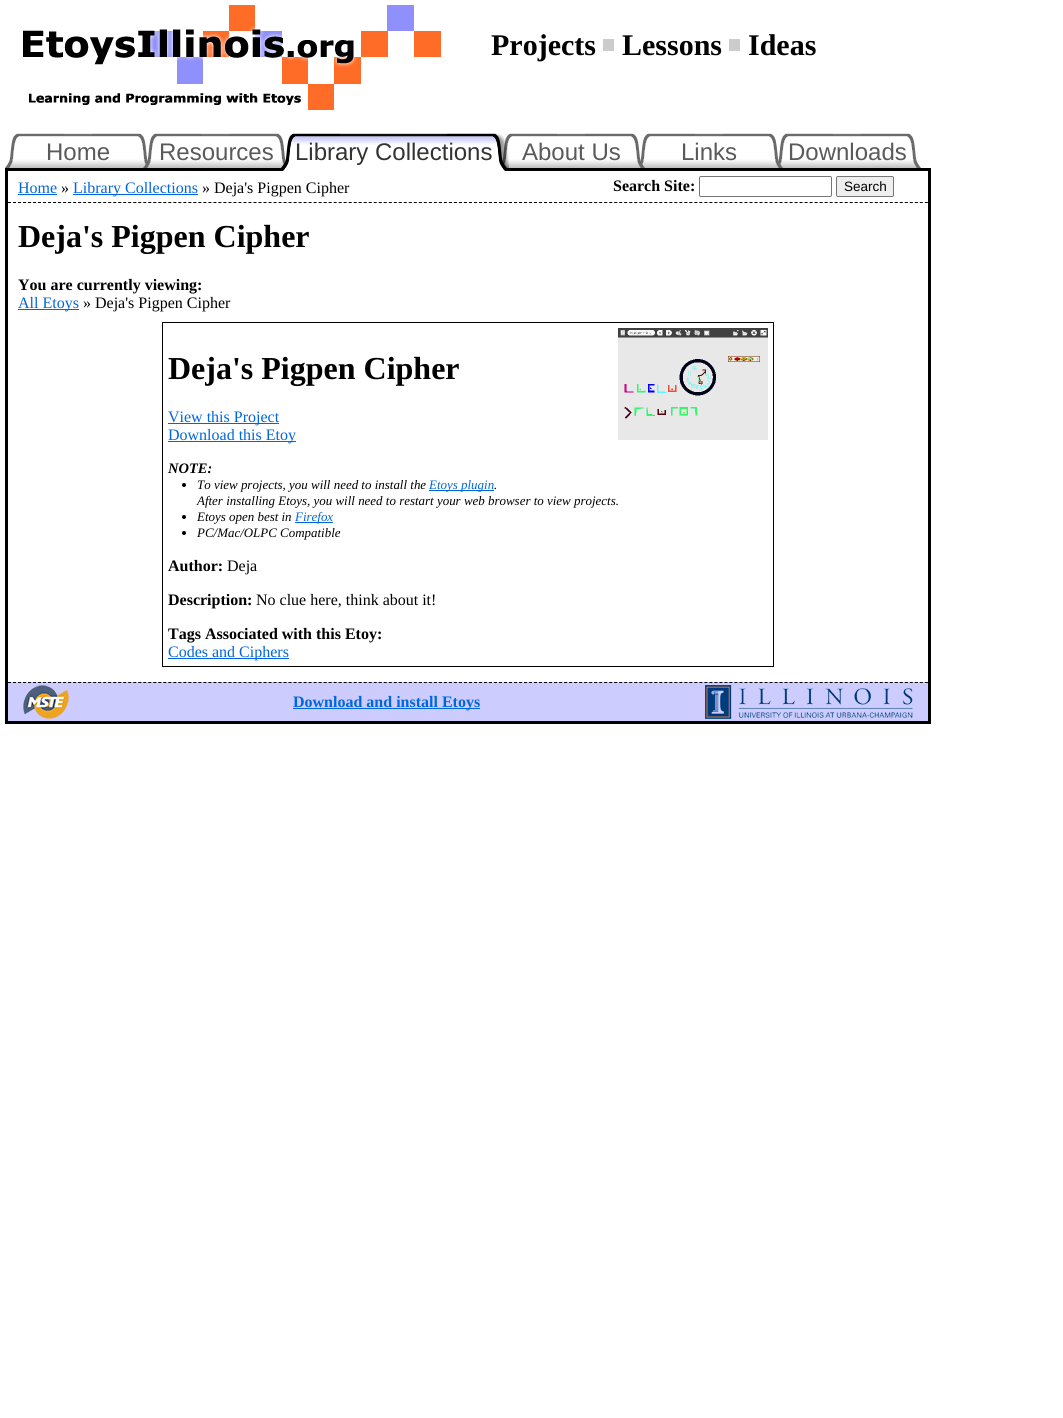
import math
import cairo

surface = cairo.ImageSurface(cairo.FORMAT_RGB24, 1063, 1418)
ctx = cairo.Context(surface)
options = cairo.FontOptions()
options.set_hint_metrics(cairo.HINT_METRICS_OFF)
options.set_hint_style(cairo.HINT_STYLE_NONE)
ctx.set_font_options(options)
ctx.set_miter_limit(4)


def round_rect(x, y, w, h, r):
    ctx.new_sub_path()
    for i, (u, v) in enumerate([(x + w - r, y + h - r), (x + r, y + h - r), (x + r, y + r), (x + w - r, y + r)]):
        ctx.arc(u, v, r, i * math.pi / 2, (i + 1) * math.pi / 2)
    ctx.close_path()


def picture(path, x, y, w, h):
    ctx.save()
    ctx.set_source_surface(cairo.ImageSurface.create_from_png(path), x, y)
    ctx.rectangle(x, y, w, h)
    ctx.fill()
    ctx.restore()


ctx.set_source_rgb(1, 1, 1)
ctx.paint()
picture("img1.png", 23, 5, 418, 105)
ctx.select_font_face("Liberation Serif", cairo.FONT_SLANT_NORMAL, cairo.FONT_WEIGHT_BOLD)
ctx.set_font_size(30)
ctx.set_source_rgb(0, 0, 0)
ctx.move_to(491, 55)
ctx.show_text("Projects")
ctx.set_source_rgb(0.8, 0.8, 0.8)
ctx.rectangle(603, 39, 11, 12)
ctx.fill()
ctx.set_source_rgb(0, 0, 0)
ctx.move_to(622, 55)
ctx.show_text("Lessons")
ctx.set_source_rgb(0.8, 0.8, 0.8)
ctx.rectangle(729, 39, 11, 12)
ctx.fill()
ctx.set_source_rgb(0, 0, 0)
ctx.move_to(748, 55)
ctx.show_text("Ideas")
picture("img2.png", 5, 133, 145, 35)
ctx.select_font_face("Liberation Sans")
ctx.set_font_size(24)
ctx.set_source_rgb(0.353, 0.353, 0.353)
ctx.move_to(46, 160)
ctx.show_text("Home")
picture("img3.png", 143, 133, 145, 35)
ctx.move_to(159, 160)
ctx.show_text("Resources")
picture("img6.png", 776, 133, 145, 35)
picture("img5.png", 638, 133, 145, 35)
picture("img5.png", 500, 133, 145, 35)
ctx.set_source_rgb(0, 0, 0)
ctx.rectangle(5, 168, 926, 3)
ctx.fill()
picture("img4.png", 281, 133, 228, 38)
ctx.set_source_rgb(0.2, 0.2, 0.2)
ctx.move_to(295, 160)
ctx.show_text("Library Collections")
ctx.set_source_rgb(0.353, 0.353, 0.353)
ctx.move_to(522, 160)
ctx.show_text("About Us")
ctx.move_to(681, 160)
ctx.show_text("Links")
ctx.move_to(788, 160)
ctx.show_text("Downloads")
ctx.set_source_rgb(0, 0, 0)
ctx.rectangle(928, 171, 3, 553)
ctx.fill()
ctx.rectangle(5, 721, 926, 3)
ctx.fill()
ctx.rectangle(5, 171, 3, 553)
ctx.fill()
ctx.new_path()
ctx.move_to(8, 202.5)
ctx.line_to(928, 202.5)
ctx.set_line_width(1)
ctx.set_dash([3, 2.01])
ctx.stroke()
ctx.select_font_face("Liberation Serif")
ctx.set_font_size(16)
ctx.set_source_rgb(0, 0.4, 0.867)
ctx.move_to(18, 193)
ctx.show_text("Home")
ctx.rectangle(18, 194, 39, 1)
ctx.fill()
ctx.set_source_rgb(0, 0, 0)
ctx.move_to(61, 193)
ctx.show_text("»")
ctx.set_source_rgb(0, 0.4, 0.867)
ctx.rectangle(73, 194, 125, 1)
ctx.fill()
ctx.move_to(73, 193)
ctx.show_text("Library Collections")
ctx.set_source_rgb(0, 0, 0)
ctx.move_to(202, 193)
ctx.show_text("» Deja's Pigpen Cipher")
ctx.select_font_face("Liberation Serif", cairo.FONT_SLANT_NORMAL, cairo.FONT_WEIGHT_BOLD)
ctx.move_to(613, 191)
ctx.show_text("Search Site:")
round_rect(699.5, 176.5, 132, 20, 1.5)
ctx.set_source_rgb(0.463, 0.463, 0.463)
ctx.set_dash([])
ctx.stroke()
ctx.set_source_rgb(0.937, 0.937, 0.937)
round_rect(836.5, 176.5, 57, 20, 1.5)
ctx.fill_preserve()
ctx.set_source_rgb(0.463, 0.463, 0.463)
ctx.stroke()
ctx.select_font_face("Liberation Sans")
ctx.set_font_size(13.5)
ctx.set_source_rgb(0, 0, 0)
ctx.move_to(844, 191)
ctx.show_text("Search")
ctx.select_font_face("Liberation Serif", cairo.FONT_SLANT_NORMAL, cairo.FONT_WEIGHT_BOLD)
ctx.set_font_size(32)
ctx.move_to(18, 247)
ctx.show_text("Deja's Pigpen Cipher")
ctx.set_font_size(16)
ctx.move_to(18, 290)
ctx.show_text("You are currently viewing:")
ctx.set_source_rgb(0, 0.4, 0.867)
ctx.rectangle(18, 309, 61, 1)
ctx.fill()
ctx.select_font_face("Liberation Serif")
ctx.move_to(18, 308)
ctx.show_text("All Etoys")
ctx.set_source_rgb(0, 0, 0)
ctx.move_to(83, 308)
ctx.show_text("» Deja's Pigpen Cipher")
ctx.rectangle(162.5, 322.5, 611, 344)
ctx.stroke()
ctx.select_font_face("Liberation Serif", cairo.FONT_SLANT_NORMAL, cairo.FONT_WEIGHT_BOLD)
ctx.set_font_size(32)
ctx.move_to(168, 379)
ctx.show_text("Deja's Pigpen Cipher")
picture("img7.png", 618, 328, 150, 112)
ctx.set_source_rgb(0, 0.4, 0.867)
ctx.rectangle(168, 423, 111, 1)
ctx.fill()
ctx.select_font_face("Liberation Serif")
ctx.set_font_size(16)
ctx.move_to(168, 422)
ctx.show_text("View this Project")
ctx.rectangle(168, 441, 128, 1)
ctx.fill()
ctx.move_to(168, 440)
ctx.show_text("Download this Etoy")
ctx.select_font_face("Liberation Serif", cairo.FONT_SLANT_ITALIC, cairo.FONT_WEIGHT_BOLD)
ctx.set_font_size(14.5)
ctx.set_source_rgb(0, 0, 0)
ctx.move_to(168, 473)
ctx.show_text("NOTE:")
ctx.new_path()
ctx.arc(184, 485, 2, 0, 2 * math.pi)
ctx.fill()
ctx.select_font_face("Liberation Serif", cairo.FONT_SLANT_ITALIC)
ctx.set_font_size(12.95)
ctx.move_to(197, 489)
ctx.show_text("To view projects, you will need to install the")
ctx.set_source_rgb(0, 0.4, 0.867)
ctx.rectangle(429, 490, 65, 1)
ctx.fill()
ctx.move_to(429, 489)
ctx.show_text("Etoys plugin")
ctx.set_source_rgb(0, 0, 0)
ctx.move_to(494, 489)
ctx.show_text(".")
ctx.move_to(197, 505)
ctx.show_text("After installing Etoys, you will need to restart your web browser to view projects.")
ctx.new_path()
ctx.arc(184, 517, 2, 0, 2 * math.pi)
ctx.fill()
ctx.move_to(197, 521)
ctx.show_text("Etoys open best in")
ctx.set_source_rgb(0, 0.4, 0.867)
ctx.rectangle(295, 522, 38, 1)
ctx.fill()
ctx.move_to(295, 521)
ctx.show_text("Firefox")
ctx.set_source_rgb(0, 0, 0)
ctx.new_path()
ctx.arc(184, 533, 2, 0, 2 * math.pi)
ctx.fill()
ctx.move_to(197, 537)
ctx.show_text("PC/Mac/OLPC Compatible")
ctx.select_font_face("Liberation Serif", cairo.FONT_SLANT_NORMAL, cairo.FONT_WEIGHT_BOLD)
ctx.set_font_size(16)
ctx.move_to(168, 571)
ctx.show_text("Author:")
ctx.select_font_face("Liberation Serif")
ctx.move_to(227, 571)
ctx.show_text("Deja")
ctx.select_font_face("Liberation Serif", cairo.FONT_SLANT_NORMAL, cairo.FONT_WEIGHT_BOLD)
ctx.move_to(168, 605)
ctx.show_text("Description:")
ctx.select_font_face("Liberation Serif")
ctx.move_to(256, 605)
ctx.show_text("No clue here, think about it!")
ctx.select_font_face("Liberation Serif", cairo.FONT_SLANT_NORMAL, cairo.FONT_WEIGHT_BOLD)
ctx.move_to(168, 639)
ctx.show_text("Tags Associated with this Etoy:")
ctx.set_source_rgb(0, 0.4, 0.867)
ctx.rectangle(168, 658, 121, 1)
ctx.fill()
ctx.select_font_face("Liberation Serif")
ctx.move_to(168, 657)
ctx.show_text("Codes and Ciphers")
ctx.set_source_rgb(0.8, 0.8, 1)
ctx.rectangle(8, 682, 920, 39)
ctx.fill()
ctx.new_path()
ctx.move_to(8, 682.5)
ctx.line_to(928, 682.5)
ctx.set_source_rgb(0, 0, 0)
ctx.set_dash([3, 2.01])
ctx.stroke()
picture("img8.png", 23, 685, 46, 34)
ctx.set_source_rgb(0, 0.4, 0.867)
ctx.rectangle(293, 708, 187, 1)
ctx.fill()
ctx.select_font_face("Liberation Serif", cairo.FONT_SLANT_NORMAL, cairo.FONT_WEIGHT_BOLD)
ctx.move_to(293, 707)
ctx.show_text("Download and install Etoys")
picture("img9.png", 705, 685, 208, 34)
surface.write_to_png("page.png")
